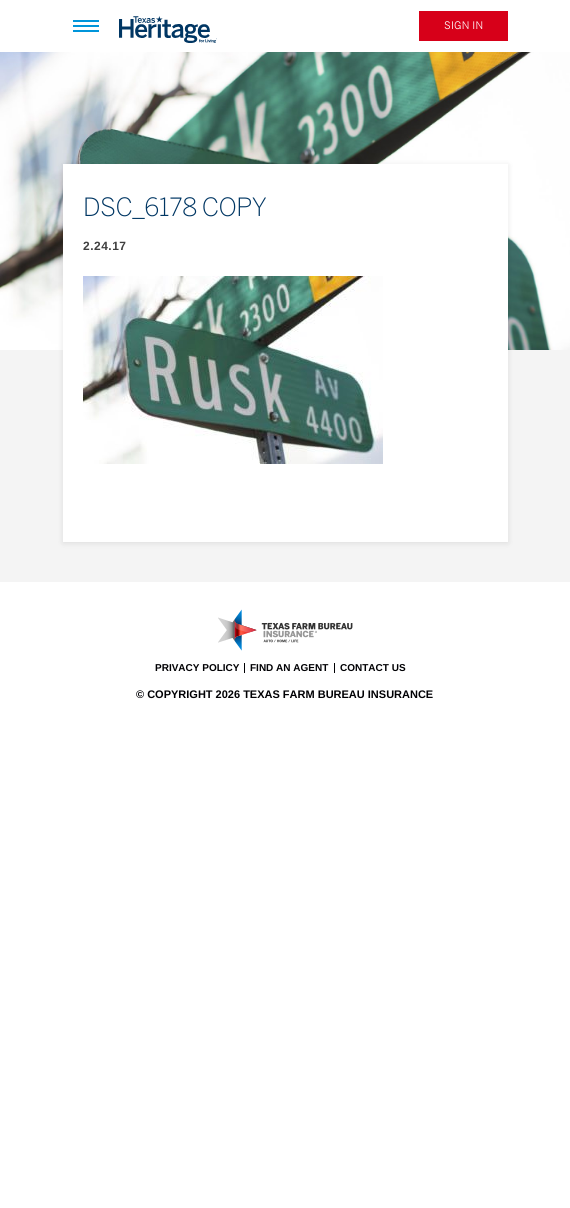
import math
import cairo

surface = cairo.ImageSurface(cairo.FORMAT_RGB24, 570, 1208)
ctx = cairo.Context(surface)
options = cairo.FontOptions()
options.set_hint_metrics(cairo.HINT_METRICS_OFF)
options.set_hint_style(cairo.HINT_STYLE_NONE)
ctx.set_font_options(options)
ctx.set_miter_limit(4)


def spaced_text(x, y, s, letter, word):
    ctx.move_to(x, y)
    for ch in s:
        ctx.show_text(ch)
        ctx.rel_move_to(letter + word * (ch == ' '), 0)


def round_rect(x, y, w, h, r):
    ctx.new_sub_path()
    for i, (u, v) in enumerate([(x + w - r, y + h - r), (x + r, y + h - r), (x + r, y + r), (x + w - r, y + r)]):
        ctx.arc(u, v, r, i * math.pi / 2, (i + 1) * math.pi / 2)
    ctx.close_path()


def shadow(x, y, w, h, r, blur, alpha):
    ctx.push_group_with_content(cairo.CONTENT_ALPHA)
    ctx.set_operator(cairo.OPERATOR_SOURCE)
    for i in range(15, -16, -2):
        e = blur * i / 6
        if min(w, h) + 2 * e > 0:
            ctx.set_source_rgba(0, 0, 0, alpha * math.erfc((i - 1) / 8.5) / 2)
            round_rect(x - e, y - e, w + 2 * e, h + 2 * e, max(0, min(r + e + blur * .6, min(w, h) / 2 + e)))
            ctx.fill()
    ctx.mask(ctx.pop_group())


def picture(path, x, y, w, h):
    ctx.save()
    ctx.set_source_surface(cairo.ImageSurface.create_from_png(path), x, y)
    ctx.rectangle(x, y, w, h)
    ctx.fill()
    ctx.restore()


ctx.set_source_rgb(1, 1, 1)
ctx.paint()
ctx.set_source_rgb(0.957, 0.957, 0.957)
ctx.rectangle(0, 350, 570, 232)
ctx.fill()
ctx.set_source_rgb(0, 0.584, 0.855)
ctx.rectangle(73, 20, 26, 2)
ctx.fill()
ctx.rectangle(73, 25, 26, 2)
ctx.fill()
ctx.rectangle(73, 30, 26, 2)
ctx.fill()
picture("img1.png", 119, 16, 98, 27)
ctx.set_source_rgb(0.843, 0, 0.098)
ctx.rectangle(419, 11, 89, 30)
ctx.fill()
ctx.select_font_face("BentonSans", cairo.FONT_SLANT_NORMAL, cairo.FONT_WEIGHT_BOLD)
ctx.set_font_size(10)
ctx.set_source_rgb(1, 1, 1)
spaced_text(444, 29, "SIGN IN", 0.5, 0)
picture("img2.png", 0, 52, 570, 298)
ctx.set_source_rgb(0, 0, 0)
shadow(63, 165, 445, 378, 0, 3, 0.1)
ctx.set_source_rgb(1, 1, 1)
ctx.rectangle(63, 164, 445, 378)
ctx.fill()
ctx.select_font_face("BentonSans Light")
ctx.set_font_size(25)
ctx.set_source_rgb(0, 0.212, 0.388)
spaced_text(83, 216, "DSC_6178 COPY", -0.5, 0)
ctx.select_font_face("Liberation Sans", cairo.FONT_SLANT_NORMAL, cairo.FONT_WEIGHT_BOLD)
ctx.set_font_size(12)
ctx.set_source_rgb(0.247, 0.247, 0.247)
spaced_text(83, 250, "2.24.17", 0.5, 0)
picture("img3.png", 83, 276, 300, 188)
picture("img4.png", 218, 609, 135, 42)
ctx.set_source_rgb(0, 0, 0.012)
ctx.rectangle(244, 663, 1, 10)
ctx.fill()
ctx.set_font_size(10)
ctx.move_to(155, 671)
ctx.show_text("PRIVACY POLICY")
ctx.rectangle(334, 663, 1, 10)
ctx.fill()
ctx.move_to(250, 671)
ctx.show_text("FIND AN AGENT")
ctx.move_to(340, 671)
ctx.show_text("CONTACT US")
ctx.set_font_size(11)
ctx.move_to(136, 698)
ctx.show_text("© COPYRIGHT 2026 TEXAS FARM BUREAU INSURANCE")
surface.write_to_png("page.png")
